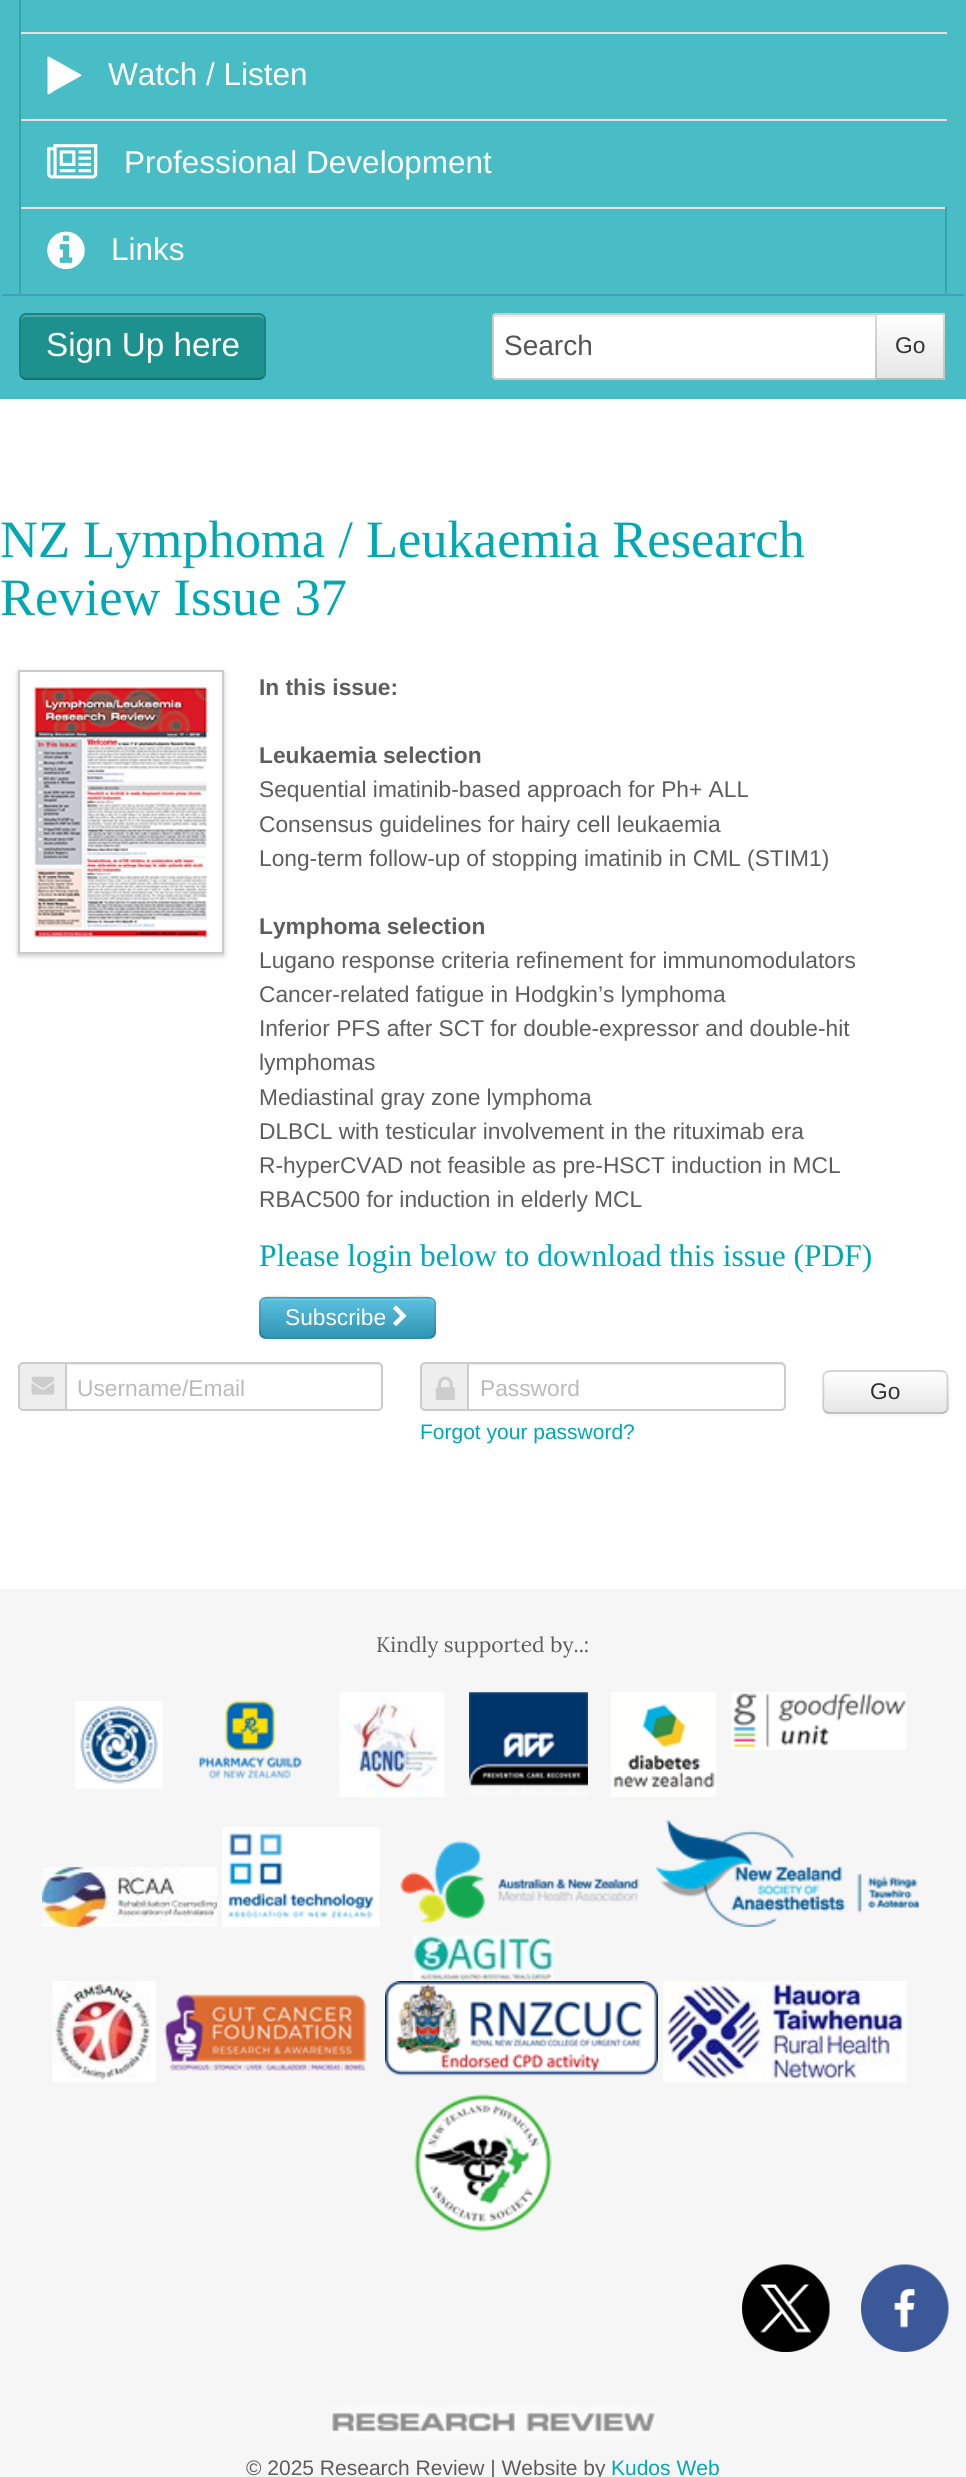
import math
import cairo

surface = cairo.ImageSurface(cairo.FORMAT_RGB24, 966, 2477)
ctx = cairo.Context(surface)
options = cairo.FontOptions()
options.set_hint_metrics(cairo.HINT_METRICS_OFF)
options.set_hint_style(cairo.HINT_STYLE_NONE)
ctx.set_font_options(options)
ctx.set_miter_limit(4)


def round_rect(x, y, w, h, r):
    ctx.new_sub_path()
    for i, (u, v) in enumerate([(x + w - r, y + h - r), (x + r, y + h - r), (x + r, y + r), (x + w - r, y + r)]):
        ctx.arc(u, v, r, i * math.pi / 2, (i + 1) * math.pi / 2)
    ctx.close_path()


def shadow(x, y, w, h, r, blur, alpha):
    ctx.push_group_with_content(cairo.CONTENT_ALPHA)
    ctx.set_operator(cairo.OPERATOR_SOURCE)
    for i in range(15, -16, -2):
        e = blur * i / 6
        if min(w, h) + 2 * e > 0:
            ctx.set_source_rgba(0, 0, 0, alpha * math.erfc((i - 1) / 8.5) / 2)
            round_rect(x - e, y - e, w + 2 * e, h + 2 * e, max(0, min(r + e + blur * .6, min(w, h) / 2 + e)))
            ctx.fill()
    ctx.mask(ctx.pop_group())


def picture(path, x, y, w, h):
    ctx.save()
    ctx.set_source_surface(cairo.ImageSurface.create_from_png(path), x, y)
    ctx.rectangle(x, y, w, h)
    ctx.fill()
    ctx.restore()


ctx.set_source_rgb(1, 1, 1)
ctx.paint()
ctx.set_source_rgb(0.282, 0.741, 0.773)
ctx.rectangle(0, 0, 966, 399)
ctx.fill()
ctx.set_source_rgb(0.212, 0.643, 0.671)
ctx.rectangle(19, 0, 2, 32)
ctx.fill()
ctx.set_source_rgb(0.89, 0.89, 0.89)
ctx.rectangle(19, 32, 928, 2)
ctx.fill()
ctx.set_source_rgb(0.212, 0.643, 0.671)
ctx.rectangle(19, 32, 2, 87)
ctx.fill()
ctx.set_source_rgb(1, 1, 1)
ctx.new_path()
ctx.move_to(81, 76)
ctx.line_to(54, 91)
ctx.curve_to(53.5, 91.5, 48.5, 95.5, 47.5, 94)
ctx.line_to(47.5, 57)
ctx.line_to(48, 56.5)
ctx.curve_to(48.5, 56, 68, 67.5, 70, 68.5)
ctx.line_to(81, 74.5)
ctx.line_to(81.5, 75.5)
ctx.close_path()
ctx.fill()
ctx.select_font_face("Liberation Sans")
ctx.set_font_size(31.5)
ctx.move_to(108, 85)
ctx.show_text("Watch / Listen")
ctx.set_source_rgb(0.89, 0.89, 0.89)
ctx.rectangle(19, 119, 928, 2)
ctx.fill()
ctx.set_source_rgb(0.212, 0.643, 0.671)
ctx.rectangle(19, 119, 2, 88)
ctx.fill()
picture("img1.png", 47, 144, 51, 35)
ctx.set_source_rgb(1, 1, 1)
ctx.move_to(124, 173)
ctx.show_text("Professional Development")
ctx.set_source_rgb(0.89, 0.89, 0.89)
ctx.rectangle(19, 207, 928, 2)
ctx.fill()
ctx.set_source_rgb(0.212, 0.643, 0.671)
ctx.rectangle(945, 207, 2, 87)
ctx.fill()
ctx.rectangle(19, 207, 2, 87)
ctx.fill()
picture("img2.png", 47, 231, 38, 39)
ctx.set_source_rgb(1, 1, 1)
ctx.move_to(111, 260)
ctx.show_text("Links")
ctx.set_source_rgb(0.271, 0.612, 0.761)
ctx.rectangle(2, 294, 962, 2)
ctx.fill()
ctx.set_source_rgba(0, 0.451, 0.404, 0.6)
round_rect(19, 313, 247, 67, 7)
ctx.fill()
ctx.set_source_rgb(0.29, 0.655, 0.639)
ctx.new_path()
ctx.move_to(26, 317)
ctx.line_to(259, 317)
ctx.curve_to(262, 317, 264, 319, 264, 322)
ctx.curve_to(264, 319, 264, 316, 260, 315)
ctx.line_to(25, 315)
ctx.curve_to(21, 316, 21, 319, 21, 322)
ctx.curve_to(21, 319, 23, 317, 26, 317)
ctx.close_path()
ctx.fill()
ctx.new_path()
ctx.move_to(263.5, 377)
ctx.curve_to(262, 378, 260.5, 379, 259, 379)
ctx.line_to(26.5, 379)
ctx.curve_to(24.5, 379, 23, 378, 22, 377)
ctx.set_source_rgba(0, 0, 0, 0.25)
ctx.set_line_width(1.8)
ctx.stroke()
ctx.new_path()
ctx.move_to(22, 377)
ctx.curve_to(21, 376, 20, 374.5, 20, 373)
ctx.line_to(20, 320)
ctx.curve_to(20, 318.5, 21, 317, 22, 316)
ctx.curve_to(23, 315, 24.5, 314, 26, 314)
ctx.line_to(259, 314)
ctx.curve_to(260.5, 314, 262, 315, 263.5, 316)
ctx.curve_to(264.5, 317, 265, 318.5, 265, 320)
ctx.line_to(265, 373)
ctx.curve_to(265, 374.5, 264.5, 376, 263.5, 377)
ctx.set_source_rgba(0, 0, 0, 0.1)
ctx.stroke()
ctx.set_font_size(33.25)
ctx.set_source_rgb(1, 1, 1)
ctx.move_to(46, 356)
ctx.show_text("Sign Up here")
ctx.new_path()
ctx.move_to(497, 313)
ctx.line_to(877, 313)
ctx.line_to(877, 380)
ctx.line_to(497, 380)
ctx.curve_to(494, 380, 492, 378, 492, 375)
ctx.line_to(492, 318)
ctx.curve_to(492, 315, 494, 313, 497, 313)
ctx.close_path()
ctx.fill()
ctx.set_source_rgb(0.925, 0.925, 0.925)
ctx.new_path()
ctx.move_to(497, 317)
ctx.line_to(875, 317)
ctx.line_to(875, 315)
ctx.line_to(498, 315)
ctx.curve_to(495, 315, 494, 317, 494, 320)
ctx.curve_to(494, 318, 495, 317, 497, 317)
ctx.close_path()
ctx.fill()
ctx.new_path()
ctx.move_to(497, 314)
ctx.line_to(876, 314)
ctx.line_to(876, 379)
ctx.line_to(497, 379)
ctx.curve_to(495, 379, 493, 377, 493, 375)
ctx.line_to(493, 318)
ctx.curve_to(493, 316, 495, 314, 497, 314)
ctx.close_path()
ctx.set_source_rgb(0.8, 0.8, 0.8)
ctx.set_line_width(2)
ctx.stroke()
ctx.set_font_size(28)
ctx.set_source_rgb(0.333, 0.333, 0.333)
ctx.move_to(504, 355)
ctx.show_text("Search")
ctx.set_source_rgb(0.961, 0.961, 0.961)
ctx.rectangle(875, 313, 70, 67)
ctx.fill()
gradient = cairo.LinearGradient(910, 315, 910, 378)
gradient.add_color_stop_rgba(0, 1, 1, 1, 1)
gradient.add_color_stop_rgba(1, 0.902, 0.902, 0.902, 1)
ctx.set_source(gradient)
ctx.rectangle(875, 315, 70, 63)
ctx.fill()
ctx.set_source_rgb(0.816, 0.816, 0.816)
ctx.new_path()
ctx.move_to(875, 313)
ctx.line_to(945, 313)
ctx.line_to(943, 315)
ctx.line_to(877, 315)
ctx.close_path()
ctx.fill()
ctx.set_source_rgba(0, 0, 0, 0.15)
ctx.new_path()
ctx.move_to(945, 313)
ctx.line_to(945, 380)
ctx.line_to(943, 378)
ctx.line_to(943, 315)
ctx.close_path()
ctx.fill()
ctx.set_source_rgba(0, 0, 0, 0.25)
ctx.new_path()
ctx.move_to(945, 380)
ctx.line_to(875, 380)
ctx.line_to(877, 378)
ctx.line_to(943, 378)
ctx.close_path()
ctx.fill()
ctx.set_source_rgba(0, 0, 0, 0.15)
ctx.new_path()
ctx.move_to(875, 380)
ctx.line_to(875, 313)
ctx.line_to(877, 315)
ctx.line_to(877, 378)
ctx.close_path()
ctx.fill()
ctx.set_font_size(22.75)
ctx.set_source_rgb(0.2, 0.2, 0.2)
ctx.move_to(895, 353)
ctx.show_text("Go")
ctx.select_font_face("Liberation Serif")
ctx.set_font_size(52.5)
ctx.set_source_rgb(0, 0.659, 0.702)
ctx.move_to(0, 557)
ctx.show_text("NZ Lymphoma / Leukaemia Research")
ctx.move_to(0, 615)
ctx.show_text("Review Issue 37")
ctx.set_source_rgb(0.796, 0.796, 0.796)
shadow(18, 672, 206, 284, 0, 2.5, 1)
ctx.set_source_rgb(1, 1, 1)
ctx.rectangle(19, 671, 204, 282)
ctx.fill_preserve()
ctx.set_source_rgb(0.796, 0.796, 0.796)
ctx.stroke()
picture("img3.png", 34, 687, 173, 252)
ctx.select_font_face("Liberation Sans", cairo.FONT_SLANT_NORMAL, cairo.FONT_WEIGHT_BOLD)
ctx.set_font_size(22.75)
ctx.set_source_rgb(0.365, 0.365, 0.365)
ctx.move_to(259, 695)
ctx.show_text("In this issue:")
ctx.move_to(259, 763)
ctx.show_text("Leukaemia selection")
ctx.select_font_face("Liberation Sans")
ctx.move_to(259, 797)
ctx.show_text("Sequential imatinib-based approach for Ph+ ALL")
ctx.move_to(259, 832)
ctx.show_text("Consensus guidelines for hairy cell leukaemia")
ctx.move_to(259, 866)
ctx.show_text("Long-term follow-up of stopping imatinib in CML (STIM1)")
ctx.select_font_face("Liberation Sans", cairo.FONT_SLANT_NORMAL, cairo.FONT_WEIGHT_BOLD)
ctx.move_to(259, 934)
ctx.show_text("Lymphoma selection")
ctx.select_font_face("Liberation Sans")
ctx.move_to(259, 968)
ctx.show_text("Lugano response criteria refinement for immunomodulators")
ctx.move_to(259, 1002)
ctx.show_text("Cancer-related fatigue in Hodgkin’s lymphoma")
ctx.move_to(259, 1036)
ctx.show_text("Inferior PFS after SCT for double-expressor and double-hit")
ctx.move_to(259, 1070)
ctx.show_text("lymphomas")
ctx.move_to(259, 1105)
ctx.show_text("Mediastinal gray zone lymphoma")
ctx.move_to(259, 1139)
ctx.show_text("DLBCL with testicular involvement in the rituximab era")
ctx.move_to(259, 1173)
ctx.show_text("R-hyperCVAD not feasible as pre-HSCT induction in MCL")
ctx.move_to(259, 1207)
ctx.show_text("RBAC500 for induction in elderly MCL")
ctx.select_font_face("Liberation Serif")
ctx.set_font_size(31.5)
ctx.set_source_rgb(0, 0.659, 0.702)
ctx.move_to(259, 1266)
ctx.show_text("Please login below to download this issue (PDF)")
ctx.set_source_rgb(0, 0, 0)
shadow(259, 1299, 177, 42, 7, 2, 0.05)
ctx.set_source_rgb(0.29, 0.69, 0.808)
round_rect(259, 1297, 177, 42, 7)
ctx.fill()
ctx.save()
round_rect(259, 1297, 177, 42, 7)
ctx.clip()
gradient = cairo.LinearGradient(347, 1299, 347, 1337)
gradient.add_color_stop_rgba(0, 0.357, 0.753, 0.871, 1)
gradient.add_color_stop_rgba(1, 0.184, 0.588, 0.706, 1)
ctx.set_source(gradient)
ctx.rectangle(259, 1299, 177, 38)
ctx.fill()
ctx.restore()
ctx.set_source_rgba(1, 1, 1, 0.2)
ctx.new_path()
ctx.move_to(266, 1300)
ctx.line_to(429, 1300)
ctx.curve_to(432, 1300, 434, 1303, 434, 1306)
ctx.line_to(434, 1304)
ctx.curve_to(434, 1301, 432, 1299, 429, 1299)
ctx.line_to(266, 1299)
ctx.curve_to(263, 1299, 261, 1301, 261, 1304)
ctx.line_to(261, 1306)
ctx.curve_to(261, 1303, 263, 1300, 266, 1300)
ctx.close_path()
ctx.fill()
ctx.new_path()
ctx.move_to(433, 1336)
ctx.curve_to(432, 1337, 430.5, 1338, 429, 1338)
ctx.line_to(266, 1338)
ctx.curve_to(264.5, 1338, 263, 1337, 261.5, 1336)
ctx.set_source_rgba(0, 0, 0, 0.25)
ctx.set_line_width(1.8)
ctx.stroke()
ctx.new_path()
ctx.move_to(261.5, 1336)
ctx.curve_to(259.5, 1333.5, 260, 1330, 260, 1327)
ctx.line_to(260, 1302.5)
ctx.curve_to(262, 1293, 285, 1297.5, 293, 1297.5)
ctx.line_to(401.5, 1297.5)
ctx.curve_to(409.5, 1297.5, 433, 1293, 435, 1302.5)
ctx.line_to(435, 1327)
ctx.curve_to(435, 1330, 435.5, 1333.5, 433, 1336)
ctx.set_source_rgba(0, 0, 0, 0.1)
ctx.stroke()
ctx.select_font_face("Liberation Sans")
ctx.set_font_size(22.75)
ctx.set_source_rgb(1, 1, 1)
ctx.move_to(285, 1325)
ctx.show_text("Subscribe")
picture("img4.png", 393, 1305, 14, 21)
ctx.set_source_rgb(0.933, 0.933, 0.933)
ctx.new_path()
ctx.move_to(23, 1363)
ctx.line_to(66, 1363)
ctx.line_to(66, 1410)
ctx.line_to(23, 1410)
ctx.curve_to(21, 1410, 19, 1408, 19, 1406)
ctx.line_to(19, 1367)
ctx.curve_to(19, 1365, 21, 1363, 23, 1363)
ctx.close_path()
ctx.fill_preserve()
ctx.set_source_rgb(0.8, 0.8, 0.8)
ctx.set_line_width(2)
ctx.stroke()
picture("img5.png", 31, 1376, 24, 19)
ctx.set_source_rgb(1, 1, 1)
ctx.new_path()
ctx.move_to(65, 1362)
ctx.line_to(378, 1362)
ctx.curve_to(381, 1362, 383, 1364, 383, 1367)
ctx.line_to(383, 1406)
ctx.curve_to(383, 1409, 381, 1411, 378, 1411)
ctx.line_to(65, 1411)
ctx.close_path()
ctx.fill()
ctx.set_source_rgb(0.925, 0.925, 0.925)
ctx.new_path()
ctx.move_to(67, 1363)
ctx.line_to(67, 1365)
ctx.line_to(378, 1365)
ctx.curve_to(380, 1365, 382, 1367, 382, 1368)
ctx.curve_to(382, 1365, 381, 1363, 378, 1363)
ctx.close_path()
ctx.fill()
ctx.new_path()
ctx.move_to(66, 1363)
ctx.line_to(378, 1363)
ctx.curve_to(380, 1363, 382, 1365, 382, 1367)
ctx.line_to(382, 1406)
ctx.curve_to(382, 1408, 380, 1410, 378, 1410)
ctx.line_to(66, 1410)
ctx.close_path()
ctx.set_source_rgb(0.8, 0.8, 0.8)
ctx.stroke()
ctx.set_source_rgb(0.733, 0.733, 0.733)
ctx.move_to(77, 1396)
ctx.show_text("Username/Email")
ctx.set_source_rgb(0.933, 0.933, 0.933)
ctx.new_path()
ctx.move_to(425, 1363)
ctx.line_to(468, 1363)
ctx.line_to(468, 1410)
ctx.line_to(425, 1410)
ctx.curve_to(423, 1410, 421, 1408, 421, 1406)
ctx.line_to(421, 1367)
ctx.curve_to(421, 1365, 423, 1363, 425, 1363)
ctx.close_path()
ctx.fill_preserve()
ctx.set_source_rgb(0.8, 0.8, 0.8)
ctx.stroke()
picture("img6.png", 435, 1376, 20, 24)
ctx.set_source_rgb(1, 1, 1)
ctx.new_path()
ctx.move_to(467, 1362)
ctx.line_to(781, 1362)
ctx.curve_to(784, 1362, 786, 1364, 786, 1367)
ctx.line_to(786, 1406)
ctx.curve_to(786, 1409, 784, 1411, 781, 1411)
ctx.line_to(467, 1411)
ctx.close_path()
ctx.fill()
ctx.set_source_rgb(0.925, 0.925, 0.925)
ctx.new_path()
ctx.move_to(469, 1365)
ctx.line_to(780, 1365)
ctx.curve_to(782, 1365, 784, 1367, 784, 1368)
ctx.line_to(784, 1367)
ctx.curve_to(784, 1365, 782, 1363, 780, 1363)
ctx.line_to(469, 1363)
ctx.close_path()
ctx.fill()
ctx.new_path()
ctx.move_to(468, 1363)
ctx.line_to(781, 1363)
ctx.curve_to(783, 1363, 785, 1365, 785, 1367)
ctx.line_to(785, 1406)
ctx.curve_to(785, 1408, 783, 1410, 781, 1410)
ctx.line_to(468, 1410)
ctx.close_path()
ctx.set_source_rgb(0.8, 0.8, 0.8)
ctx.stroke()
ctx.set_source_rgb(0.733, 0.733, 0.733)
ctx.move_to(480, 1396)
ctx.show_text("Password")
ctx.set_source_rgb(0, 0, 0)
shadow(823, 1372, 126, 44, 7, 2, 0.05)
ctx.set_source_rgb(0.961, 0.961, 0.961)
round_rect(823, 1370, 126, 44, 7)
ctx.fill()
ctx.save()
round_rect(823, 1370, 126, 44, 7)
ctx.clip()
gradient = cairo.LinearGradient(886, 1372, 886, 1412)
gradient.add_color_stop_rgba(0, 1, 1, 1, 1)
gradient.add_color_stop_rgba(1, 0.902, 0.902, 0.902, 1)
ctx.set_source(gradient)
ctx.rectangle(823, 1372, 126, 40)
ctx.fill()
ctx.restore()
ctx.new_path()
ctx.move_to(946, 1411.5)
ctx.curve_to(944.5, 1412.5, 943, 1413, 941.5, 1413)
ctx.line_to(829.5, 1413)
ctx.curve_to(828, 1413, 826.5, 1412.5, 825, 1411.5)
ctx.set_source_rgba(0, 0, 0, 0.25)
ctx.set_line_width(1.8)
ctx.stroke()
ctx.new_path()
ctx.move_to(825, 1411.5)
ctx.curve_to(821.5, 1408, 823.5, 1401, 823.5, 1397)
ctx.curve_to(823.5, 1368.5, 818.5, 1371, 848, 1371)
ctx.line_to(923, 1371)
ctx.curve_to(949.5, 1371, 947.5, 1367.5, 947.5, 1392)
ctx.line_to(947.5, 1402)
ctx.curve_to(947.5, 1405, 948.5, 1409, 946, 1411.5)
ctx.set_source_rgba(0, 0, 0, 0.15)
ctx.stroke()
ctx.set_source_rgb(0.2, 0.2, 0.2)
ctx.move_to(870, 1399)
ctx.show_text("Go")
ctx.set_font_size(21)
ctx.set_source_rgb(0, 0.659, 0.702)
ctx.move_to(420, 1439)
ctx.show_text("Forgot your password?")
ctx.set_source_rgb(0.961, 0.961, 0.961)
ctx.rectangle(0, 1589, 966, 888)
ctx.fill()
ctx.select_font_face("Lora")
ctx.set_source_rgb(0.365, 0.365, 0.365)
ctx.move_to(376, 1652)
ctx.show_text("Kindly supported by..:")
picture("img7.png", 75, 1701, 88, 88)
picture("img8.png", 199, 1700, 103, 79)
picture("img9.png", 339, 1692, 106, 105)
picture("img10.png", 469, 1692, 119, 105)
picture("img11.png", 611, 1692, 105, 105)
picture("img12.png", 731, 1692, 176, 58)
picture("img13.png", 42, 1867, 175, 60)
picture("img14.png", 222, 1827, 158, 100)
picture("img15.png", 400, 1840, 240, 84)
picture("img16.png", 656, 1820, 263, 107)
picture("img17.png", 413, 1935, 140, 46)
picture("img18.png", 52, 1981, 104, 102)
picture("img19.png", 164, 1994, 203, 78)
picture("img20.png", 385, 1981, 273, 95)
picture("img21.png", 663, 1981, 244, 102)
picture("img22.png", 414, 2094, 138, 138)
picture("img23.png", 742, 2264, 88, 88)
picture("img24.png", 861, 2264, 88, 88)
picture("img25.png", 331, 2405, 325, 34)
ctx.select_font_face("Liberation Sans")
ctx.move_to(246, 2475)
ctx.show_text("© 2025 Research Review | Website by")
ctx.set_source_rgb(0, 0.659, 0.702)
ctx.move_to(611, 2475)
ctx.show_text("Kudos Web")
surface.write_to_png("page.png")
